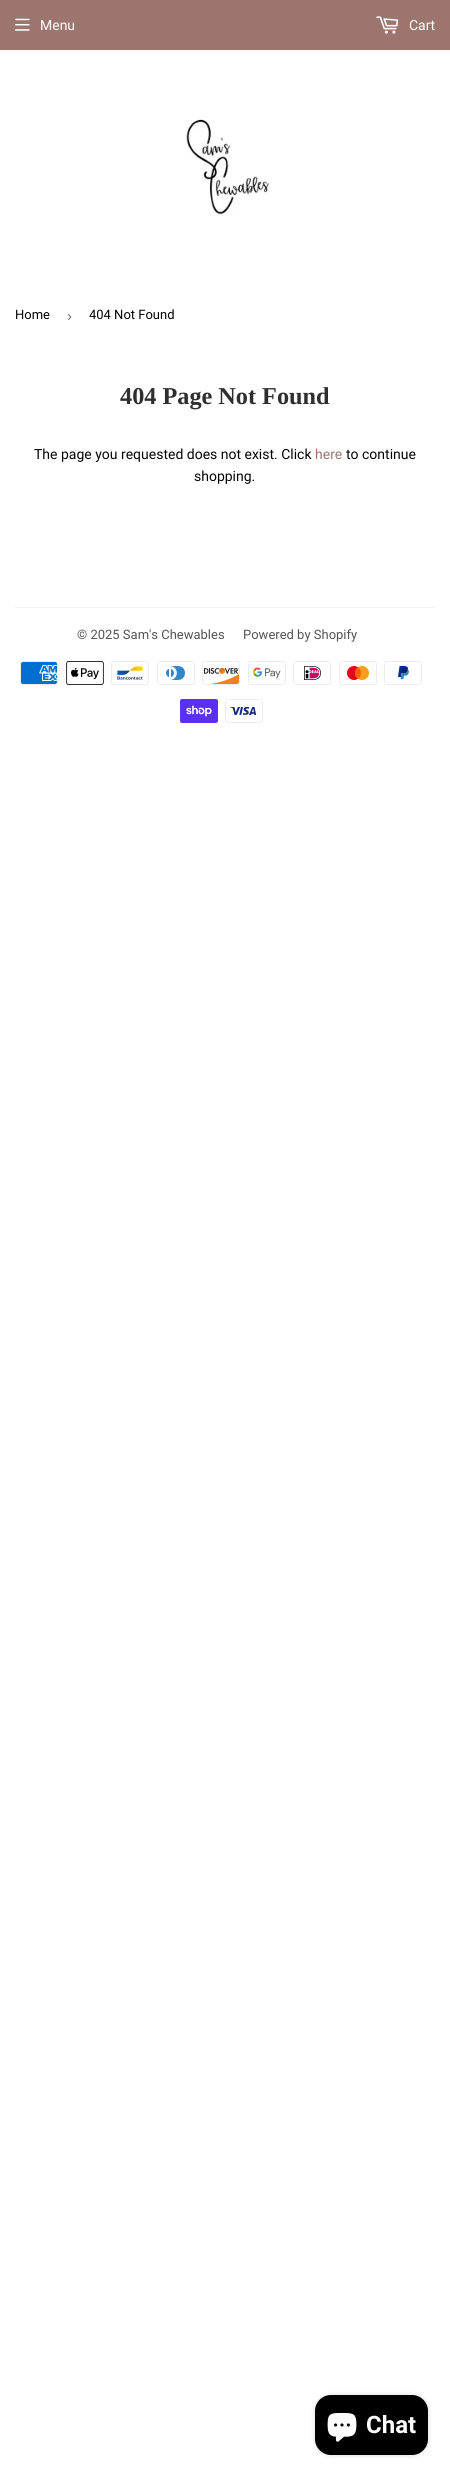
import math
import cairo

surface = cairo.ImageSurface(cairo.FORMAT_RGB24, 450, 2476)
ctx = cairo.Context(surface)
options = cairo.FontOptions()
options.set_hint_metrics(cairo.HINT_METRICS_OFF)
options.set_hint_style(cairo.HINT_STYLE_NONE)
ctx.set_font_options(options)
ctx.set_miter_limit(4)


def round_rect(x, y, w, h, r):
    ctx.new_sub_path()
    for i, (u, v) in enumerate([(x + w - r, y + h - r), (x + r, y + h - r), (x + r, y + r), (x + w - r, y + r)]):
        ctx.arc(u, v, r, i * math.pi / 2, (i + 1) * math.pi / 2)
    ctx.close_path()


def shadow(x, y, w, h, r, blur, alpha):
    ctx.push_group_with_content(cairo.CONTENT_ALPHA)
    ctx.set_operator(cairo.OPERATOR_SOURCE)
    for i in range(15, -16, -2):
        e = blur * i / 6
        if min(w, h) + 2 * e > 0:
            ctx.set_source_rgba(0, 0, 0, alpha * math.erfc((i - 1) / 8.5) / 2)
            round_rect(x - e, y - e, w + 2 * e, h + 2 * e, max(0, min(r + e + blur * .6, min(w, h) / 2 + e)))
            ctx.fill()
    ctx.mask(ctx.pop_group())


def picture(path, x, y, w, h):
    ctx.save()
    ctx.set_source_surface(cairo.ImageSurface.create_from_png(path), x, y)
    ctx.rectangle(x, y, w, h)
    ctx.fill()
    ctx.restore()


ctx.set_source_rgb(1, 1, 1)
ctx.paint()
ctx.set_source_rgb(0.612, 0.459, 0.435)
ctx.rectangle(0, 0, 450, 50)
ctx.fill()
picture("img1.png", 15, 18, 15, 13)
ctx.select_font_face("Roboto")
ctx.set_font_size(14)
ctx.set_source_rgb(1, 1, 1)
ctx.move_to(40, 30)
ctx.show_text("Menu")
picture("img2.png", 376, 16, 23, 18)
ctx.move_to(409, 30)
ctx.show_text("Cart")
picture("img3.png", 186, 119, 84, 96)
ctx.set_font_size(13)
ctx.set_source_rgb(0.012, 0.012, 0.012)
ctx.move_to(15, 319)
ctx.show_text("Home")
ctx.select_font_face("Liberation Sans")
ctx.set_font_size(15)
ctx.set_source_rgb(0.463, 0.463, 0.463)
ctx.move_to(67, 321)
ctx.show_text("›")
ctx.select_font_face("Roboto")
ctx.set_font_size(13)
ctx.set_source_rgb(0.012, 0.012, 0.012)
ctx.move_to(89, 319)
ctx.show_text("404 Not Found")
ctx.select_font_face("Liberation Serif", cairo.FONT_SLANT_NORMAL, cairo.FONT_WEIGHT_BOLD)
ctx.set_font_size(24.25)
ctx.set_source_rgb(0.184, 0.184, 0.184)
ctx.move_to(120, 404)
ctx.show_text("404 Page Not Found")
ctx.select_font_face("Roboto")
ctx.set_font_size(14)
ctx.set_source_rgb(0.012, 0.012, 0.012)
ctx.move_to(34, 459)
ctx.show_text("The page you requested does not exist. Click")
ctx.set_source_rgb(0.612, 0.459, 0.435)
ctx.move_to(315, 459)
ctx.show_text("here")
ctx.set_source_rgb(0.012, 0.012, 0.012)
ctx.move_to(346, 459)
ctx.show_text("to continue")
ctx.move_to(194, 481)
ctx.show_text("shopping.")
ctx.set_source_rgb(0.949, 0.949, 0.949)
ctx.rectangle(15, 607, 420, 1)
ctx.fill()
ctx.set_font_size(13)
ctx.set_source_rgb(0.329, 0.329, 0.329)
ctx.move_to(77, 639)
ctx.show_text("© 2025 Sam's Chewables")
ctx.move_to(243, 639)
ctx.show_text("Powered by Shopify")
picture("img4.png", 20, 661, 38, 24)
picture("img5.png", 66, 661, 38, 24)
picture("img6.png", 111, 661, 38, 24)
picture("img7.png", 157, 661, 38, 24)
picture("img8.png", 202, 661, 38, 24)
picture("img9.png", 248, 661, 38, 24)
picture("img10.png", 293, 661, 38, 24)
picture("img11.png", 339, 661, 38, 24)
picture("img12.png", 384, 661, 38, 24)
picture("img13.png", 180, 699, 38, 24)
picture("img14.png", 225, 699, 38, 24)
ctx.set_source_rgb(0, 0, 0)
shadow(315, 2395, 113, 60, 16, 2.5, 0.15)
ctx.set_source_rgb(0, 0, 0)
round_rect(315, 2395, 113, 60, 16)
ctx.fill()
picture("img15.png", 327, 2413, 30, 29)
ctx.select_font_face("Roboto", cairo.FONT_SLANT_NORMAL, cairo.FONT_WEIGHT_BOLD)
ctx.set_font_size(24)
ctx.set_source_rgb(1, 1, 1)
ctx.move_to(366, 2433)
ctx.show_text("Chat")
surface.write_to_png("page.png")
